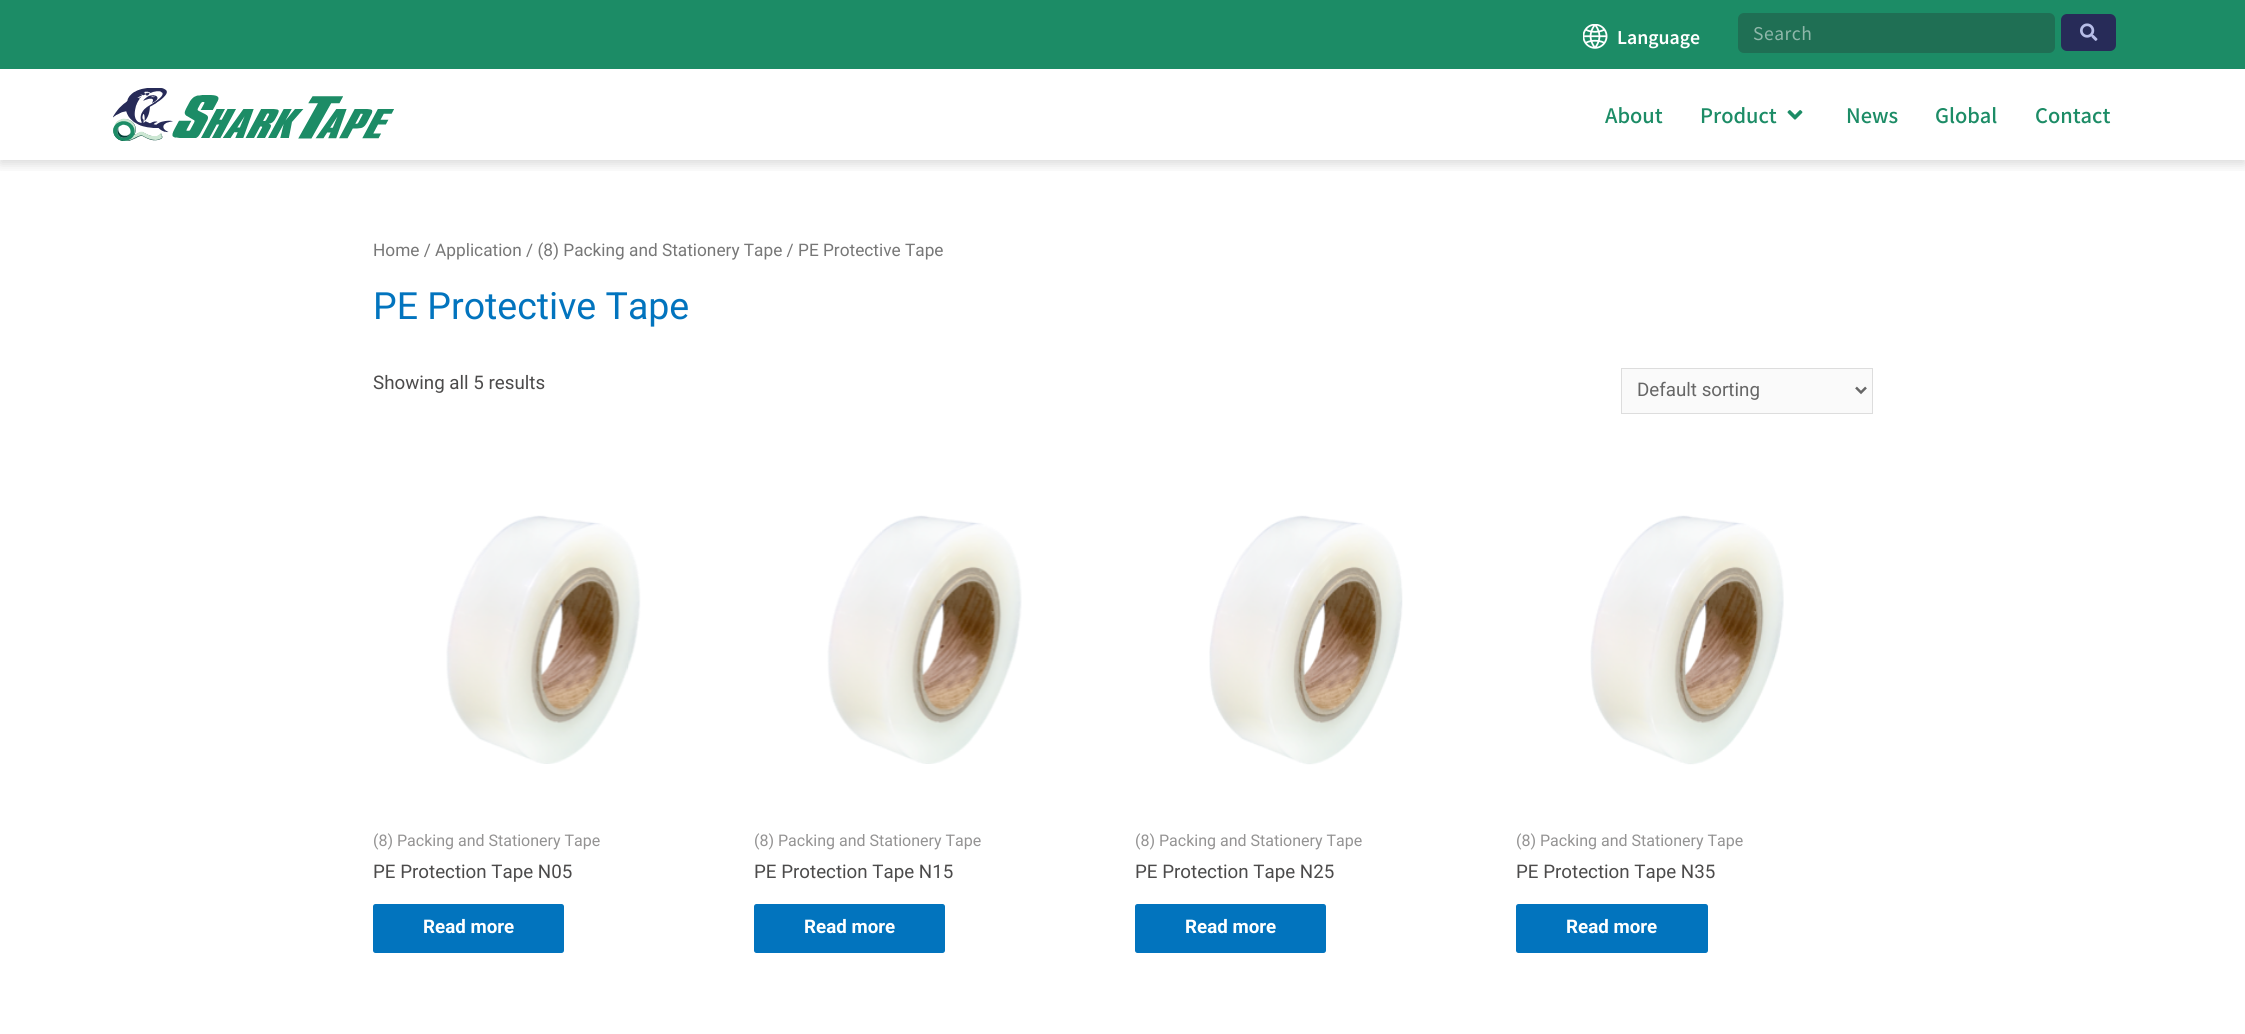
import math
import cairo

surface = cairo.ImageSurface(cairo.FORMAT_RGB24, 2245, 1034)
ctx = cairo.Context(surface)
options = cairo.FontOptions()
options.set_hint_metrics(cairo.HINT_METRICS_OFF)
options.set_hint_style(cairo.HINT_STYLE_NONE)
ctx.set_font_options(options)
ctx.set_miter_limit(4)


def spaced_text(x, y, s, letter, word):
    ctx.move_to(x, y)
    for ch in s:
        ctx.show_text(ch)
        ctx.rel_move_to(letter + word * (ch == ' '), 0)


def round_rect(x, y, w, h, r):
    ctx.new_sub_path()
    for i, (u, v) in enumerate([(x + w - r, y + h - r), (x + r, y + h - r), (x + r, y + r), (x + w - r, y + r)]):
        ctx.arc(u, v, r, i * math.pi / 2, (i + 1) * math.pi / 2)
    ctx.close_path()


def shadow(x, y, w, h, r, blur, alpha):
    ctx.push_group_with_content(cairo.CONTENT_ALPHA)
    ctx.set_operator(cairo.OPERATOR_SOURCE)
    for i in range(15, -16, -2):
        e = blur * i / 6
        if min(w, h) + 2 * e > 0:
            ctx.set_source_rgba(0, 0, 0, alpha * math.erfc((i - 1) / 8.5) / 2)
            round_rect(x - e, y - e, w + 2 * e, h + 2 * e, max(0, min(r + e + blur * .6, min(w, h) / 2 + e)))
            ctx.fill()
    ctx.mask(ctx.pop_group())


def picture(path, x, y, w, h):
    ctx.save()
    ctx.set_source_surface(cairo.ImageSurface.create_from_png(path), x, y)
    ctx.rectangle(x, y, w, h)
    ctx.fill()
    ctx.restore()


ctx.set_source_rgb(1, 1, 1)
ctx.paint()
ctx.save()
ctx.rectangle(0, 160, 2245, 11)
ctx.clip()
ctx.set_source_rgb(0, 0, 0)
shadow(0, 4, 2245, 160, 0, 6, 0.15)
ctx.restore()
ctx.set_source_rgb(0.11, 0.549, 0.4)
ctx.rectangle(0, 0, 2245, 69)
ctx.fill()
picture("img1.png", 1583, 24, 25, 25)
ctx.select_font_face("Noto Sans TC SemiBold")
ctx.set_font_size(17.5)
ctx.set_source_rgb(1, 1, 1)
ctx.move_to(1617, 44)
ctx.show_text("Language")
ctx.set_source_rgb(0.122, 0.435, 0.329)
round_rect(1739.5, 14.5, 314, 37, 4.5)
ctx.fill_preserve()
ctx.set_line_width(3)
ctx.stroke()
ctx.select_font_face("Noto Sans TC")
ctx.set_source_rgb(0.561, 0.718, 0.667)
spaced_text(1753, 40, "Search", 0.5, 0)
ctx.set_source_rgb(0.153, 0.169, 0.345)
round_rect(2061, 14, 55, 37, 6)
ctx.fill()
picture("img2.png", 2080, 23, 18, 18)
picture("img3.png", 113, 88, 281, 53)
ctx.select_font_face("Noto Sans TC Medium")
ctx.set_font_size(20)
ctx.set_source_rgb(0.11, 0.549, 0.4)
ctx.move_to(1605, 123)
ctx.show_text("About")
ctx.move_to(1700, 123)
ctx.show_text("Product")
picture("img4.png", 1787, 110, 16, 10)
ctx.move_to(1846, 123)
ctx.show_text("News")
ctx.move_to(1935, 123)
ctx.show_text("Global")
ctx.move_to(2035, 123)
ctx.show_text("Contact")
ctx.select_font_face("Roboto")
ctx.set_font_size(17.25)
ctx.set_source_rgb(0.467, 0.467, 0.467)
ctx.move_to(373, 256)
ctx.show_text("Home / Application / (8) Packing and Stationery Tape / PE Protective Tape")
ctx.set_font_size(37.5)
ctx.set_source_rgb(0.008, 0.455, 0.745)
ctx.move_to(373, 319)
ctx.show_text("PE Protective Tape")
ctx.set_font_size(18.75)
ctx.set_source_rgb(0.298, 0.294, 0.294)
ctx.move_to(373, 389)
ctx.show_text("Showing all 5 results")
ctx.set_source_rgb(0.98, 0.98, 0.98)
ctx.rectangle(1621.5, 368.5, 251, 45)
ctx.fill_preserve()
ctx.set_source_rgb(0.867, 0.867, 0.867)
ctx.set_line_width(1)
ctx.stroke()
ctx.new_path()
ctx.move_to(1856, 387.5)
ctx.line_to(1861, 392.5)
ctx.line_to(1866, 387.5)
ctx.set_source_rgb(0.4, 0.4, 0.4)
ctx.set_line_width(2.5)
ctx.stroke()
ctx.move_to(1637, 396)
ctx.show_text("Default sorting")
picture("img5.png", 446, 515, 195, 249)
ctx.set_font_size(16)
ctx.set_source_rgb(0.58, 0.576, 0.576)
ctx.move_to(373, 846)
ctx.show_text("(8) Packing and Stationery Tape")
ctx.set_font_size(18.75)
ctx.set_source_rgb(0.298, 0.294, 0.294)
ctx.move_to(373, 878)
ctx.show_text("PE Protection Tape N05")
ctx.set_source_rgb(0.008, 0.455, 0.745)
round_rect(373, 904, 191, 49, 2.5)
ctx.fill()
ctx.select_font_face("Roboto", cairo.FONT_SLANT_NORMAL, cairo.FONT_WEIGHT_BOLD)
ctx.set_source_rgb(1, 1, 1)
ctx.move_to(423, 933)
ctx.show_text("Read more")
picture("img6.png", 827, 515, 195, 249)
ctx.select_font_face("Roboto")
ctx.set_font_size(16)
ctx.set_source_rgb(0.58, 0.576, 0.576)
ctx.move_to(754, 846)
ctx.show_text("(8) Packing and Stationery Tape")
ctx.set_font_size(18.75)
ctx.set_source_rgb(0.298, 0.294, 0.294)
ctx.move_to(754, 878)
ctx.show_text("PE Protection Tape N15")
ctx.set_source_rgb(0.008, 0.455, 0.745)
round_rect(754, 904, 191, 49, 2.5)
ctx.fill()
ctx.select_font_face("Roboto", cairo.FONT_SLANT_NORMAL, cairo.FONT_WEIGHT_BOLD)
ctx.set_source_rgb(1, 1, 1)
ctx.move_to(804, 933)
ctx.show_text("Read more")
picture("img7.png", 1209, 515, 194, 250)
ctx.select_font_face("Roboto")
ctx.set_font_size(16)
ctx.set_source_rgb(0.58, 0.576, 0.576)
ctx.move_to(1135, 846)
ctx.show_text("(8) Packing and Stationery Tape")
ctx.set_font_size(18.75)
ctx.set_source_rgb(0.298, 0.294, 0.294)
ctx.move_to(1135, 878)
ctx.show_text("PE Protection Tape N25")
ctx.set_source_rgb(0.008, 0.455, 0.745)
round_rect(1135, 904, 191, 49, 2.5)
ctx.fill()
ctx.select_font_face("Roboto", cairo.FONT_SLANT_NORMAL, cairo.FONT_WEIGHT_BOLD)
ctx.set_source_rgb(1, 1, 1)
ctx.move_to(1185, 933)
ctx.show_text("Read more")
picture("img8.png", 1590, 515, 194, 250)
ctx.select_font_face("Roboto")
ctx.set_font_size(16)
ctx.set_source_rgb(0.58, 0.576, 0.576)
ctx.move_to(1516, 846)
ctx.show_text("(8) Packing and Stationery Tape")
ctx.set_font_size(18.75)
ctx.set_source_rgb(0.298, 0.294, 0.294)
ctx.move_to(1516, 878)
ctx.show_text("PE Protection Tape N35")
ctx.set_source_rgb(0.008, 0.455, 0.745)
round_rect(1516, 904, 192, 49, 2.5)
ctx.fill()
ctx.select_font_face("Roboto", cairo.FONT_SLANT_NORMAL, cairo.FONT_WEIGHT_BOLD)
ctx.set_source_rgb(1, 1, 1)
ctx.move_to(1566, 933)
ctx.show_text("Read more")
surface.write_to_png("page.png")
